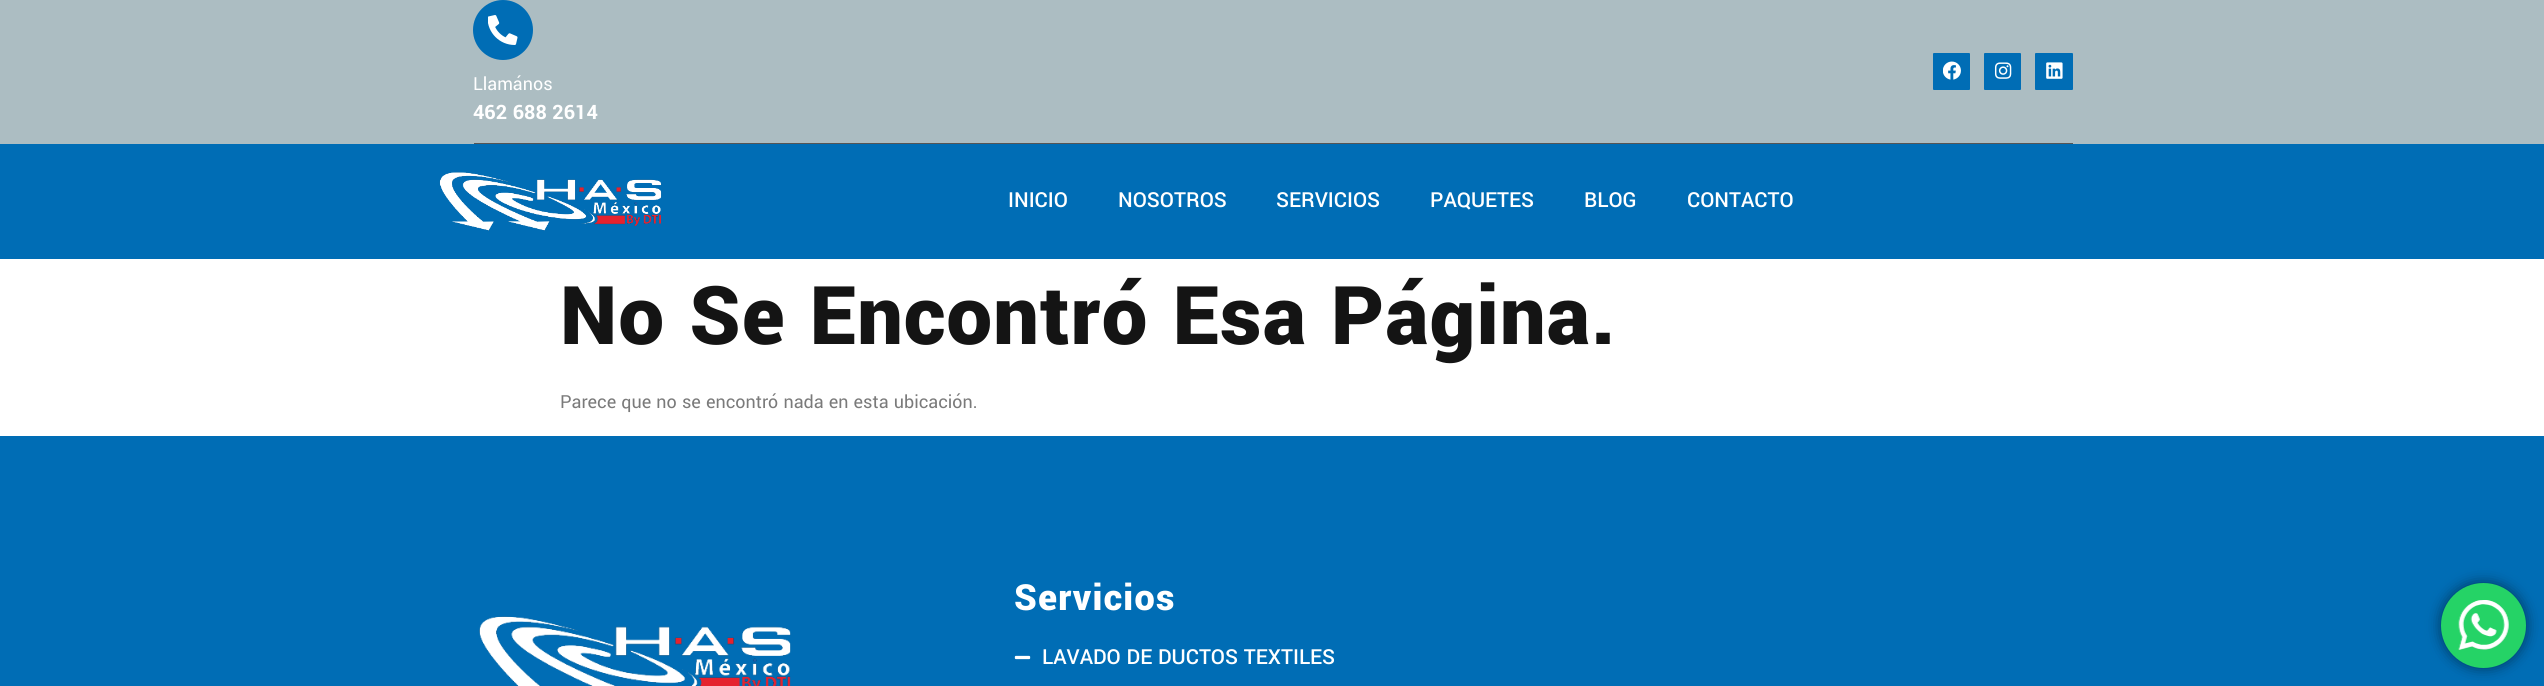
import math
import cairo

surface = cairo.ImageSurface(cairo.FORMAT_RGB24, 2544, 686)
ctx = cairo.Context(surface)
options = cairo.FontOptions()
options.set_hint_metrics(cairo.HINT_METRICS_OFF)
options.set_hint_style(cairo.HINT_STYLE_NONE)
ctx.set_font_options(options)
ctx.set_miter_limit(4)


def spaced_text(x, y, s, letter, word):
    ctx.move_to(x, y)
    for ch in s:
        ctx.show_text(ch)
        ctx.rel_move_to(letter + word * (ch == ' '), 0)


def round_rect(x, y, w, h, r):
    ctx.new_sub_path()
    for i, (u, v) in enumerate([(x + w - r, y + h - r), (x + r, y + h - r), (x + r, y + r), (x + w - r, y + r)]):
        ctx.arc(u, v, r, i * math.pi / 2, (i + 1) * math.pi / 2)
    ctx.close_path()


def shadow(x, y, w, h, r, blur, alpha):
    ctx.push_group_with_content(cairo.CONTENT_ALPHA)
    ctx.set_operator(cairo.OPERATOR_SOURCE)
    for i in range(15, -16, -2):
        e = blur * i / 6
        if min(w, h) + 2 * e > 0:
            ctx.set_source_rgba(0, 0, 0, alpha * math.erfc((i - 1) / 8.5) / 2)
            round_rect(x - e, y - e, w + 2 * e, h + 2 * e, max(0, min(r + e + blur * .6, min(w, h) / 2 + e)))
            ctx.fill()
    ctx.mask(ctx.pop_group())


def picture(path, x, y, w, h):
    ctx.save()
    ctx.set_source_surface(cairo.ImageSurface.create_from_png(path), x, y)
    ctx.rectangle(x, y, w, h)
    ctx.fill()
    ctx.restore()


ctx.set_source_rgb(1, 1, 1)
ctx.paint()
ctx.set_source_rgb(0.675, 0.741, 0.761)
ctx.rectangle(0, 0, 2544, 144)
ctx.fill()
ctx.set_source_rgb(0.333, 0.333, 0.333)
ctx.rectangle(474, 143, 1599, 1)
ctx.fill()
ctx.set_source_rgb(0, 0.427, 0.71)
ctx.arc(503, 30, 30, 0, 2 * math.pi)
ctx.fill()
picture("img1.png", 488, 15, 30, 30)
ctx.select_font_face("Yantramanav")
ctx.set_font_size(20)
ctx.set_source_rgb(1, 1, 1)
ctx.move_to(473, 90)
ctx.show_text("Llamános")
ctx.select_font_face("Yantramanav", cairo.FONT_SLANT_NORMAL, cairo.FONT_WEIGHT_BOLD)
ctx.set_font_size(22)
ctx.move_to(473, 119)
ctx.show_text("462 688 2614")
ctx.set_source_rgb(0, 0.427, 0.71)
round_rect(1933, 53, 37, 37, 1)
ctx.fill()
picture("img2.png", 1943, 61, 18, 19)
round_rect(1984, 53, 37, 37, 1)
ctx.fill()
picture("img3.png", 1994, 62, 18, 17)
round_rect(2035, 53, 38, 37, 1)
ctx.fill()
picture("img4.png", 2046, 62, 17, 17)
ctx.rectangle(0, 144, 2544, 115)
ctx.fill()
picture("img5.png", 439, 172, 223, 59)
ctx.select_font_face("Yantramanav Medium")
ctx.set_font_size(23)
ctx.set_source_rgb(1, 1, 1)
ctx.move_to(1008, 207)
ctx.show_text("INICIO")
ctx.move_to(1118, 207)
ctx.show_text("NOSOTROS")
ctx.move_to(1276, 207)
ctx.show_text("SERVICIOS")
ctx.move_to(1430, 207)
ctx.show_text("PAQUETES")
ctx.move_to(1584, 207)
ctx.show_text("BLOG")
ctx.move_to(1687, 207)
ctx.show_text("CONTACTO")
ctx.select_font_face("Yantramanav Black")
ctx.set_font_size(90)
ctx.set_source_rgb(0.082, 0.082, 0.082)
spaced_text(560, 344, "No Se Encontró Esa Página.", 1.25, 0)
ctx.select_font_face("Yantramanav")
ctx.set_font_size(20)
ctx.set_source_rgb(0.478, 0.478, 0.478)
ctx.move_to(560, 408)
ctx.show_text("Parece que no se encontró nada en esta ubicación.")
ctx.set_source_rgb(0, 0.427, 0.71)
ctx.rectangle(0, 436, 2544, 250)
ctx.fill()
picture("img6.png", 479, 616, 312, 70)
ctx.select_font_face("Yantramanav Black")
ctx.set_font_size(40)
ctx.set_source_rgb(1, 1, 1)
spaced_text(1014, 610, "Servicios", 1.25, 0)
picture("img7.png", 1014, 655, 17, 5)
ctx.select_font_face("Yantramanav Medium")
ctx.set_font_size(23)
ctx.move_to(1042, 664)
ctx.show_text("LAVADO DE DUCTOS TEXTILES")
ctx.set_source_rgb(0, 0, 0)
shadow(2441, 583, 85, 85, 42.5, 7, 0.5)
ctx.set_source_rgb(0.145, 0.827, 0.4)
ctx.arc(2483.5, 625.5, 42.5, 0, 2 * math.pi)
ctx.fill()
picture("img8.png", 2458, 600, 51, 50)
surface.write_to_png("page.png")
